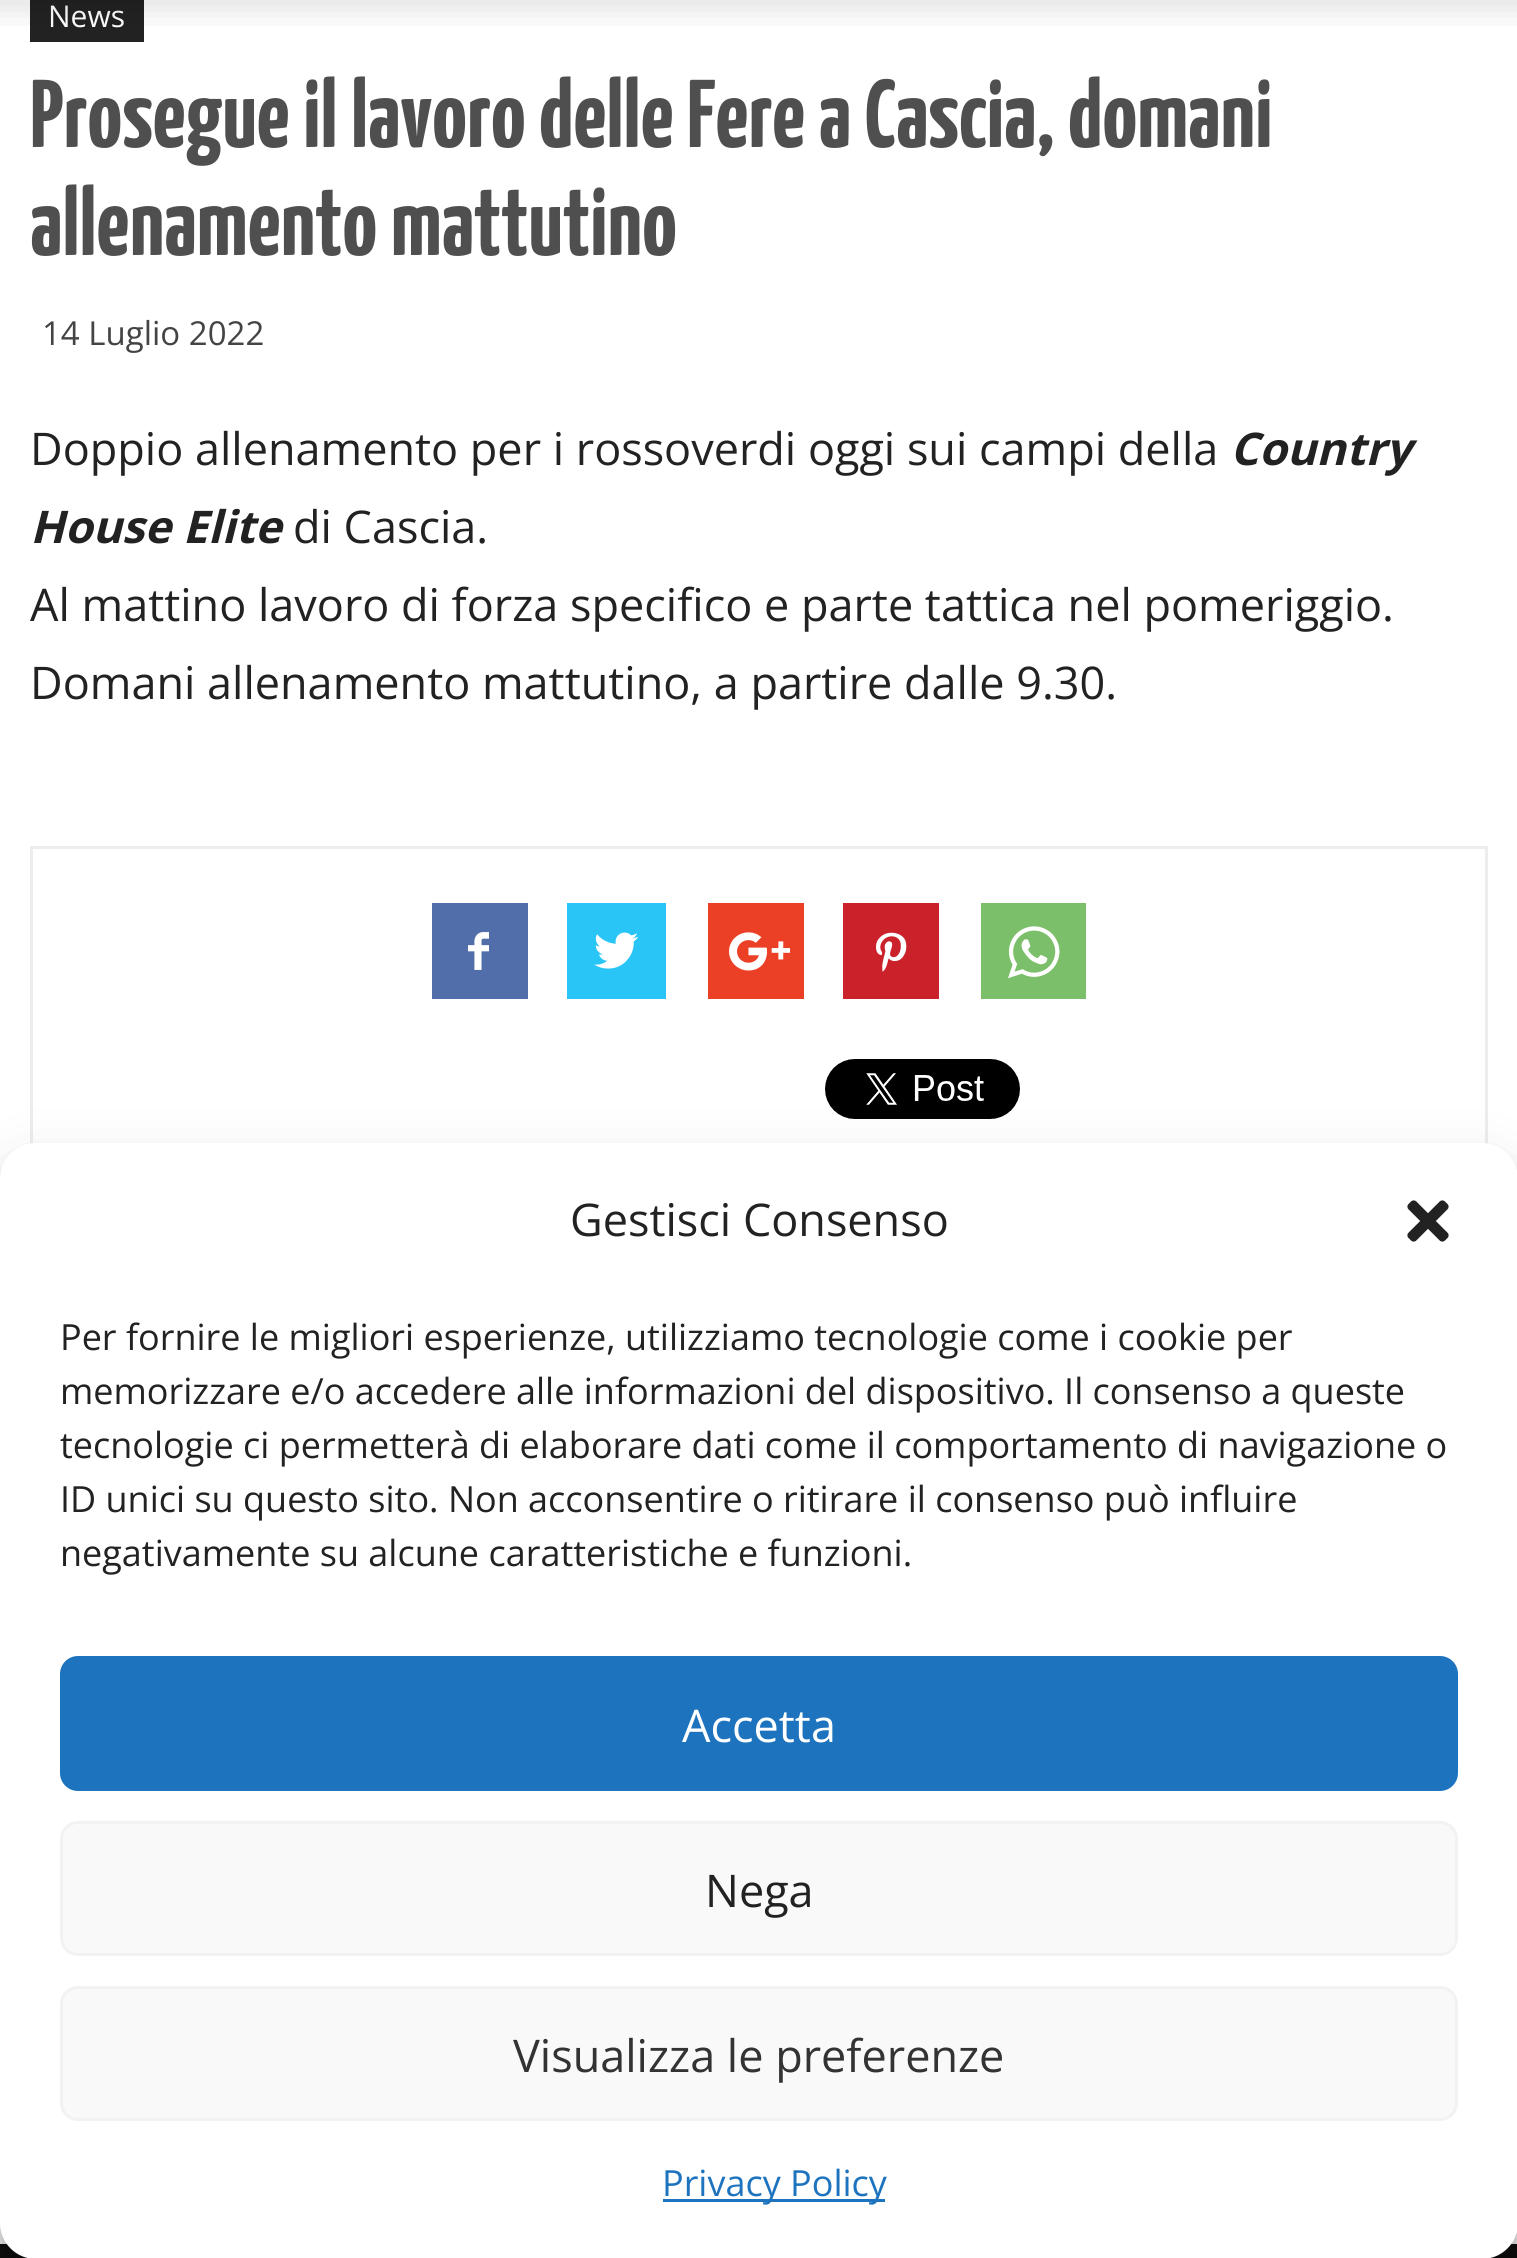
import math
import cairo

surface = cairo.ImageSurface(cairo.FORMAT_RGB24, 1517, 2258)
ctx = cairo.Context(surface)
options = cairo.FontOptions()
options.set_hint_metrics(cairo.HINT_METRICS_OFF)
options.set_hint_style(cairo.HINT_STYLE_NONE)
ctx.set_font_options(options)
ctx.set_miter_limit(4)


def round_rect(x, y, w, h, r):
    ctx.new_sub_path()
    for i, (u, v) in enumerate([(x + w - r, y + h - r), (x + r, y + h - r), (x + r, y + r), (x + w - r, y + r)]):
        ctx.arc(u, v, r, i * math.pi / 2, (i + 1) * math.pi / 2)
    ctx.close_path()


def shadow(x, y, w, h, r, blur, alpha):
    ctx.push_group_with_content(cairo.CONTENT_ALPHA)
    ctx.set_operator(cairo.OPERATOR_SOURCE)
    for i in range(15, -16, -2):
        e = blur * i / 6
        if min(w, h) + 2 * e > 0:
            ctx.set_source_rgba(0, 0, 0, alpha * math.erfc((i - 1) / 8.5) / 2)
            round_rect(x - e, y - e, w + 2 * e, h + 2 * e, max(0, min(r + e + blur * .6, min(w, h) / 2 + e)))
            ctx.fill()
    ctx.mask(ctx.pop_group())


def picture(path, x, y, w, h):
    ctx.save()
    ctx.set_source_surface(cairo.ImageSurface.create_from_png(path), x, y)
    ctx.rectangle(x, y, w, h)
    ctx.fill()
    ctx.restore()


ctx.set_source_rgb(1, 1, 1)
ctx.paint()
ctx.set_source_rgb(0.133, 0.133, 0.133)
ctx.rectangle(30, 0, 114, 42)
ctx.fill()
ctx.select_font_face("Open Sans")
ctx.set_font_size(30)
ctx.set_source_rgb(1, 1, 1)
ctx.move_to(48, 27)
ctx.show_text("News")
picture("img1.png", 0, 0, 1517, 26)
ctx.select_font_face("Yanone Kaffeesatz", cairo.FONT_SLANT_NORMAL, cairo.FONT_WEIGHT_BOLD)
ctx.set_font_size(96)
ctx.set_source_rgb(0.31, 0.31, 0.31)
ctx.move_to(30, 147)
ctx.show_text("Prosegue il lavoro delle Fere a Cascia, domani")
ctx.move_to(30, 255)
ctx.show_text("allenamento mattutino")
ctx.select_font_face("Open Sans")
ctx.set_font_size(33)
ctx.set_source_rgb(0.267, 0.267, 0.267)
ctx.move_to(42, 345)
ctx.show_text("14 Luglio 2022")
ctx.set_font_size(45)
ctx.set_source_rgb(0.133, 0.133, 0.133)
ctx.move_to(30, 465)
ctx.show_text("Doppio allenamento per i rossoverdi oggi sui campi della")
ctx.select_font_face("Open Sans", cairo.FONT_SLANT_ITALIC, cairo.FONT_WEIGHT_BOLD)
ctx.move_to(1230, 465)
ctx.show_text("Country")
ctx.move_to(30, 543)
ctx.show_text("House Elite")
ctx.select_font_face("Open Sans")
ctx.move_to(293, 543)
ctx.show_text("di Cascia.")
ctx.move_to(30, 621)
ctx.show_text("Al mattino lavoro di forza specifico e parte tattica nel pomeriggio.")
ctx.move_to(30, 699)
ctx.show_text("Domani allenamento mattutino, a partire dalle 9.30.")
ctx.rectangle(31.5, 847.5, 1455, 327)
ctx.set_source_rgb(0.929, 0.929, 0.929)
ctx.set_line_width(3)
ctx.stroke()
ctx.set_source_rgb(0.318, 0.431, 0.671)
ctx.rectangle(432, 903, 96, 96)
ctx.fill()
picture("img2.png", 468, 932, 21, 38)
ctx.set_source_rgb(0.161, 0.773, 0.965)
ctx.rectangle(567, 903, 99, 96)
ctx.fill()
picture("img3.png", 594, 932, 45, 37)
ctx.set_source_rgb(0.922, 0.251, 0.149)
ctx.rectangle(708, 903, 96, 96)
ctx.fill()
picture("img4.png", 729, 932, 62, 39)
ctx.set_source_rgb(0.792, 0.129, 0.165)
ctx.rectangle(843, 903, 96, 96)
ctx.fill()
picture("img5.png", 876, 932, 31, 40)
ctx.set_source_rgb(0.482, 0.749, 0.416)
ctx.rectangle(981, 903, 105, 96)
ctx.fill()
picture("img6.png", 1008, 926, 52, 53)
picture("img7.png", 825, 1059, 195, 60)
ctx.set_source_rgb(0.051, 0.051, 0.051)
ctx.rectangle(0, 2244, 1517, 14)
ctx.fill()
ctx.set_source_rgb(0, 0, 0)
shadow(0, 1161, 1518, 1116, 36, 9, 0.23)
shadow(0, 1173, 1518, 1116, 36, 30, 0.19)
ctx.set_source_rgb(1, 1, 1)
round_rect(0, 1143, 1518, 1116, 36)
ctx.fill()
ctx.set_source_rgb(0.133, 0.133, 0.133)
ctx.move_to(570, 1236)
ctx.show_text("Gestisci Consenso")
picture("img8.png", 1407, 1200, 42, 42)
ctx.set_font_size(36)
ctx.move_to(60, 1350)
ctx.show_text("Per fornire le migliori esperienze, utilizziamo tecnologie come i cookie per")
ctx.move_to(60, 1404)
ctx.show_text("memorizzare e/o accedere alle informazioni del dispositivo. Il consenso a queste")
ctx.move_to(60, 1458)
ctx.show_text("tecnologie ci permetterà di elaborare dati come il comportamento di navigazione o")
ctx.move_to(60, 1512)
ctx.show_text("ID unici su questo sito. Non acconsentire o ritirare il consenso può influire")
ctx.move_to(60, 1566)
ctx.show_text("negativamente su alcune caratteristiche e funzioni.")
ctx.set_source_rgb(0.118, 0.451, 0.745)
round_rect(61.5, 1657.5, 1395, 132, 16.5)
ctx.fill_preserve()
ctx.stroke()
ctx.set_font_size(45)
ctx.set_source_rgb(1, 1, 1)
ctx.move_to(682, 1742)
ctx.show_text("Accetta")
ctx.set_source_rgb(0.976, 0.976, 0.976)
round_rect(61.5, 1822.5, 1395, 132, 16.5)
ctx.fill_preserve()
ctx.set_source_rgb(0.949, 0.949, 0.949)
ctx.stroke()
ctx.set_source_rgb(0.133, 0.133, 0.133)
ctx.move_to(705, 1907)
ctx.show_text("Nega")
ctx.set_source_rgb(0.976, 0.976, 0.976)
round_rect(61.5, 1987.5, 1395, 132, 16.5)
ctx.fill_preserve()
ctx.set_source_rgb(0.949, 0.949, 0.949)
ctx.stroke()
ctx.set_source_rgb(0.2, 0.2, 0.2)
ctx.move_to(513, 2072)
ctx.show_text("Visualizza le preferenze")
ctx.set_source_rgb(0.118, 0.451, 0.745)
ctx.rectangle(663, 2199, 222, 3)
ctx.fill()
ctx.set_font_size(36)
ctx.move_to(662, 2196)
ctx.show_text("Privacy Policy")
surface.write_to_png("page.png")
